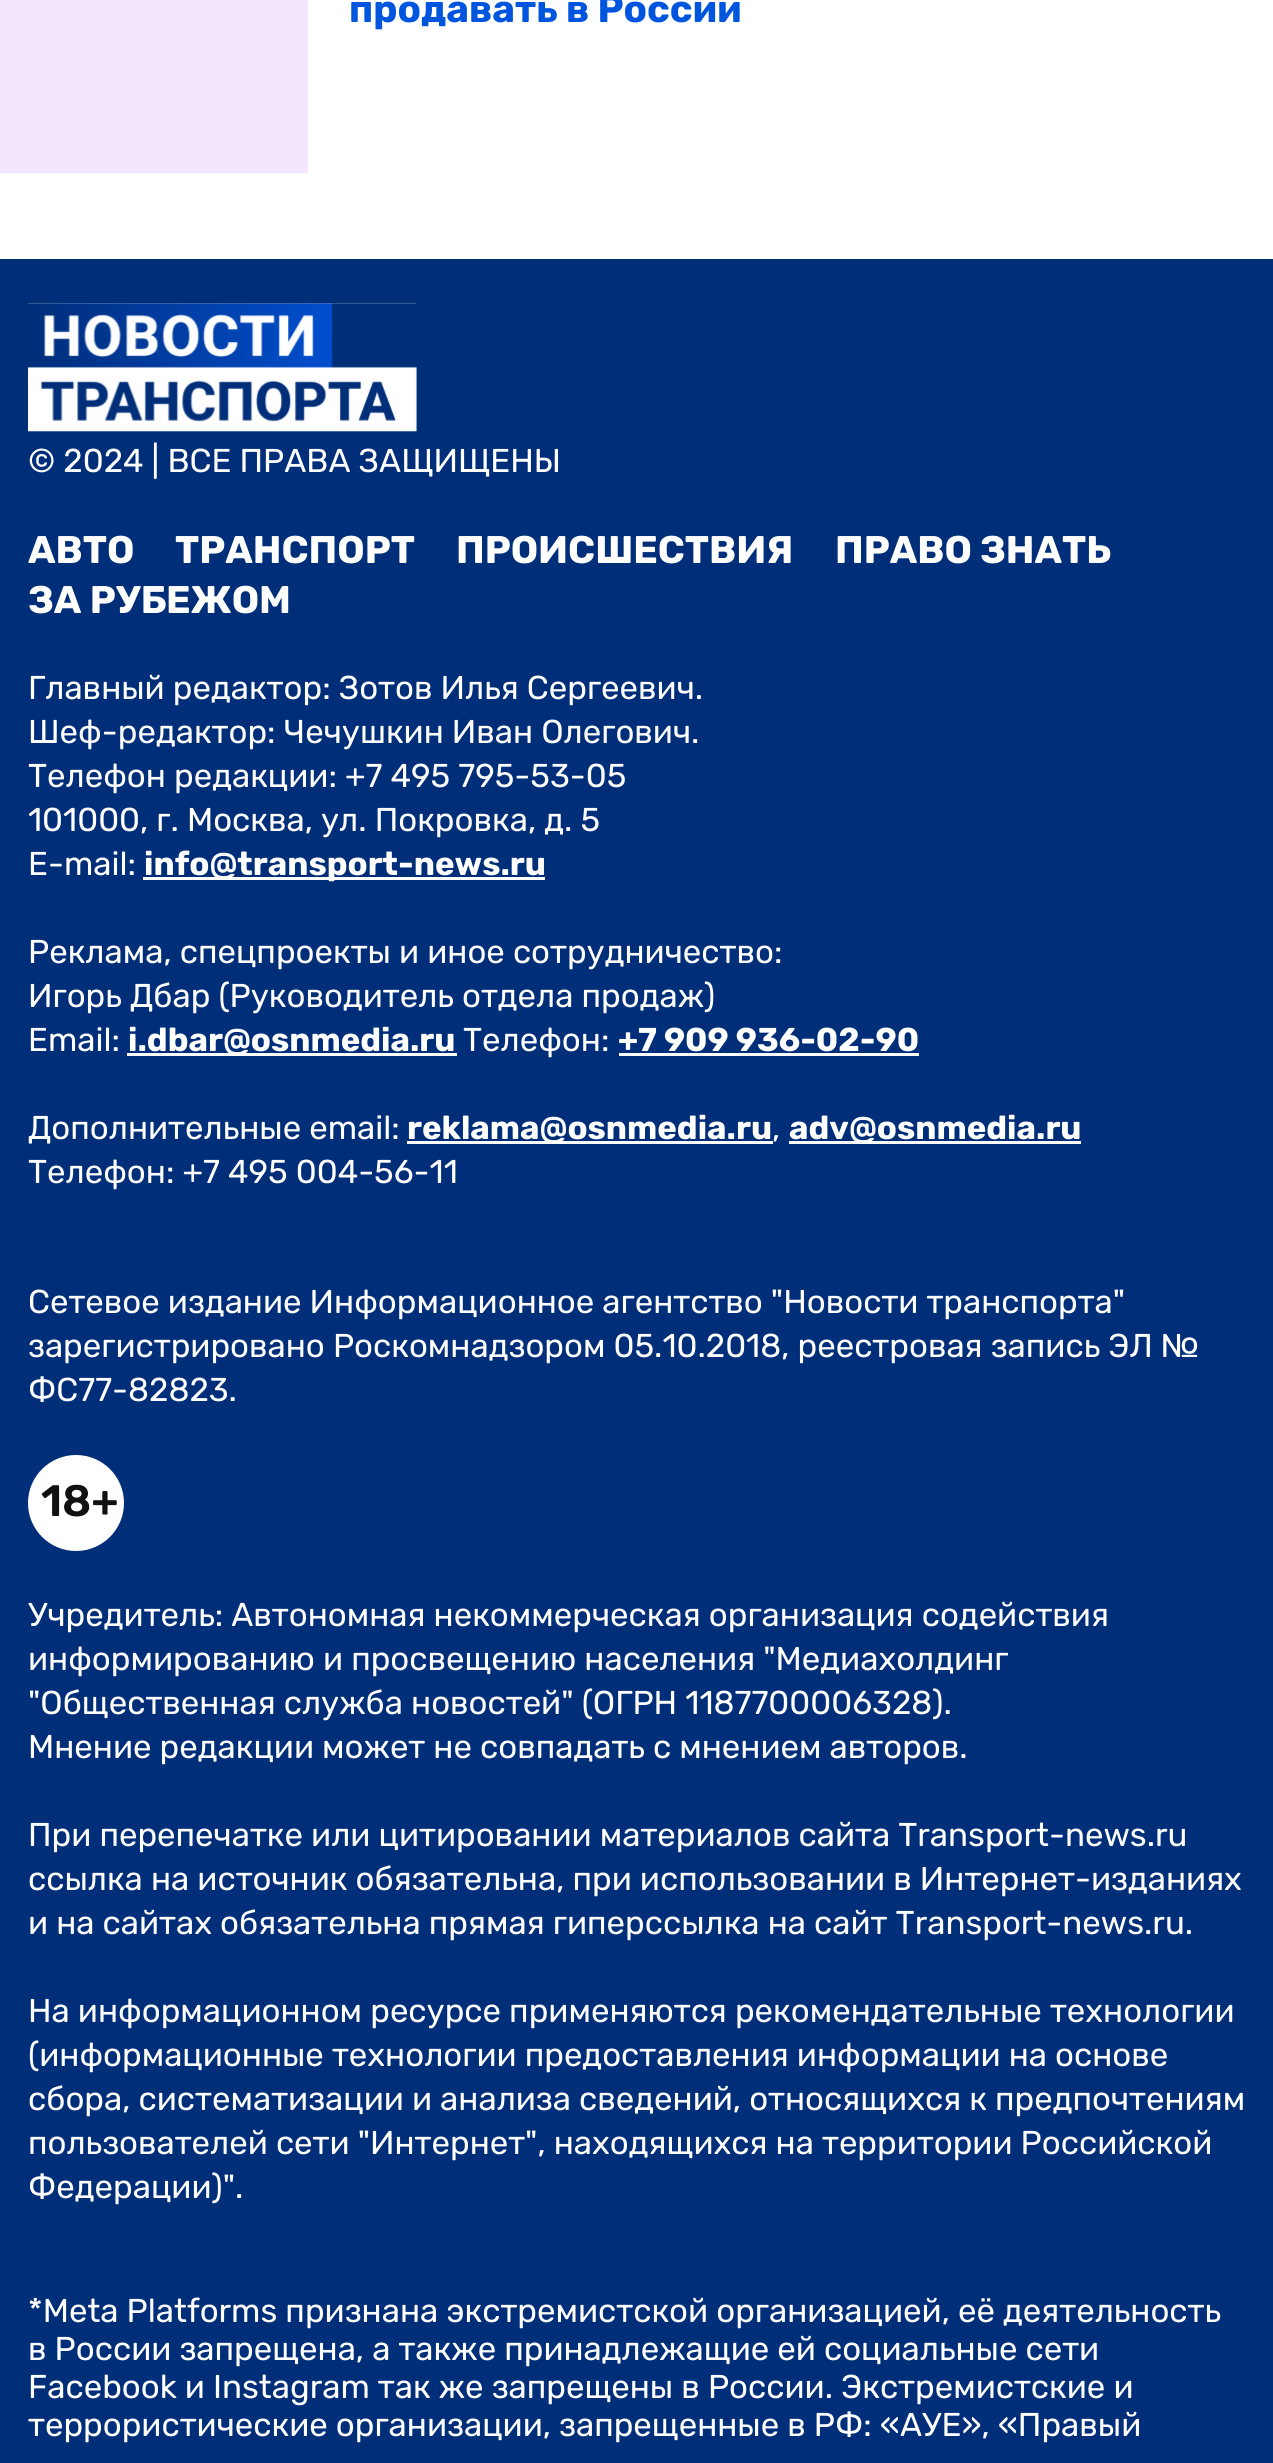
#include <cairo.h>
#include <math.h>
#include <stddef.h>


static void set_color(cairo_t *cr, unsigned color) {
    cairo_set_source_rgb(cr, (color >> 16) / 255.0, (color >> 8 & 255) / 255.0, (color & 255) / 255.0);
}

static void draw_text(cairo_t *cr, double x, double y, const char *s, const char *family, double size, int italic, int bold, unsigned color) {
    cairo_select_font_face(cr, family, italic ? CAIRO_FONT_SLANT_ITALIC : CAIRO_FONT_SLANT_NORMAL,
        bold ? CAIRO_FONT_WEIGHT_BOLD : CAIRO_FONT_WEIGHT_NORMAL);
    cairo_set_font_size(cr, size);
    set_color(cr, color);
    cairo_move_to(cr, x, y);
    cairo_show_text(cr, s);
}

static void fill_rect(cairo_t *cr, double x, double y, double w, double h, unsigned color) {
    set_color(cr, color);
    cairo_rectangle(cr, x, y, w, h);
    cairo_fill(cr);
}

static void draw_image(cairo_t *cr, const char *path, double x, double y, double w, double h) {
    cairo_surface_t *image = cairo_image_surface_create_from_png(path);
    cairo_save(cr);
    cairo_set_source_surface(cr, image, x, y);
    cairo_rectangle(cr, x, y, w, h);
    cairo_fill(cr);
    cairo_restore(cr);
    cairo_surface_destroy(image);
}

int main(void) {
    cairo_surface_t *surface = cairo_image_surface_create(CAIRO_FORMAT_RGB24, 1273, 2463);
    cairo_t *cr = cairo_create(surface);
    cairo_font_options_t *options = cairo_font_options_create();
    cairo_font_options_set_hint_metrics(options, CAIRO_HINT_METRICS_OFF);
    cairo_font_options_set_hint_style(options, CAIRO_HINT_STYLE_NONE);
    cairo_set_font_options(cr, options);
    cairo_set_miter_limit(cr, 4);
    set_color(cr, 0xFFFFFF);
    cairo_paint(cr);
    fill_rect(cr, 0, 0, 308, 173, 0xF3E7FF);
    draw_text(cr, 349, 22, "продавать в России", "Rubik", 38.5, 0, 1, 0x0055DF);
    fill_rect(cr, 0, 259, 1273, 2204, 0x002E79);
    draw_image(cr, "assets/img1.png", 28, 303, 389, 129);
    draw_text(cr, 28, 472, "© 2024 | ВСЕ ПРАВА ЗАЩИЩЕНЫ", "Rubik", 33, 0, 0, 0xFFFFFF);
    draw_text(cr, 28, 563, "АВТО", "Rubik", 38.5, 0, 1, 0xFFFFFF);
    draw_text(cr, 175, 563, "ТРАНСПОРТ", "Rubik", 38.5, 0, 1, 0xFFFFFF);
    draw_text(cr, 456, 563, "ПРОИСШЕСТВИЯ", "Rubik", 38.5, 0, 1, 0xFFFFFF);
    draw_text(cr, 835, 563, "ПРАВО ЗНАТЬ", "Rubik", 38.5, 0, 1, 0xFFFFFF);
    draw_text(cr, 28, 613, "ЗА РУБЕЖОМ", "Rubik", 38.5, 0, 1, 0xFFFFFF);
    draw_text(cr, 28, 699, "Главный редактор: Зотов Илья Сергеевич.", "Rubik", 33, 0, 0, 0xFFFFFF);
    draw_text(cr, 28, 743, "Шеф-редактор: Чечушкин Иван Олегович.", "Rubik", 33, 0, 0, 0xFFFFFF);
    draw_text(cr, 28, 787, "Телефон редакции: +7 495 795-53-05", "Rubik", 33, 0, 0, 0xFFFFFF);
    draw_text(cr, 28, 831, "101000, г. Москва, ул. Покровка, д. 5", "Rubik", 33, 0, 0, 0xFFFFFF);
    draw_text(cr, 28, 875, "E-mail:", "Rubik", 33, 0, 0, 0xFFFFFF);
    fill_rect(cr, 143, 877, 402, 3, 0xFFFFFF);
    draw_text(cr, 144, 875, "info@transport-news.ru", "Rubik", 33, 0, 1, 0xFFFFFF);
    draw_text(cr, 28, 963, "Реклама, спецпроекты и иное сотрудничество:", "Rubik", 33, 0, 0, 0xFFFFFF);
    draw_text(cr, 28, 1007, "Игорь Дбар (Руководитель отдела продаж)", "Rubik", 33, 0, 0, 0xFFFFFF);
    draw_text(cr, 28, 1051, "Email:", "Rubik", 33, 0, 0, 0xFFFFFF);
    fill_rect(cr, 127, 1053, 330, 3, 0xFFFFFF);
    draw_text(cr, 128, 1051, "i.dbar@osnmedia.ru", "Rubik", 33, 0, 1, 0xFFFFFF);
    draw_text(cr, 463, 1051, "Телефон:", "Rubik", 33, 0, 0, 0xFFFFFF);
    draw_text(cr, 618, 1051, "+7 909 936-02-90", "Rubik", 33, 0, 1, 0xFFFFFF);
    fill_rect(cr, 619, 1053, 300, 3, 0xFFFFFF);
    draw_text(cr, 28, 1139, "Дополнительные email:", "Rubik", 33, 0, 0, 0xFFFFFF);
    fill_rect(cr, 407, 1141, 366, 3, 0xFFFFFF);
    draw_text(cr, 407, 1139, "reklama@osnmedia.ru", "Rubik", 33, 0, 1, 0xFFFFFF);
    draw_text(cr, 772, 1139, ",", "Rubik", 33, 0, 0, 0xFFFFFF);
    fill_rect(cr, 789, 1141, 292, 3, 0xFFFFFF);
    draw_text(cr, 789, 1139, "adv@osnmedia.ru", "Rubik", 33, 0, 1, 0xFFFFFF);
    draw_text(cr, 28, 1183, "Телефон: +7 495 004-56-11", "Rubik", 33, 0, 0, 0xFFFFFF);
    draw_text(cr, 28, 1313, "Сетевое издание Информационное агентство \"Новости транспорта\"", "Rubik", 33, 0, 0, 0xFFFFFF);
    draw_text(cr, 28, 1357, "зарегистрировано Роскомнадзором 05.10.2018, реестровая запись ЭЛ №", "Rubik", 33, 0, 0, 0xFFFFFF);
    draw_text(cr, 28, 1401, "ФС77-82823.", "Rubik", 33, 0, 0, 0xFFFFFF);
    cairo_new_path(cr);
    cairo_arc(cr, 76, 1503, 48, 0, 2 * M_PI);
    cairo_fill(cr);
    draw_text(cr, 41, 1516, "18+", "Rubik SemiBold", 44, 0, 0, 0x111111);
    draw_text(cr, 28, 1626, "Учредитель: Автономная некоммерческая организация содействия", "Rubik", 33, 0, 0, 0xFFFFFF);
    draw_text(cr, 28, 1670, "информированию и просвещению населения \"Медиахолдинг", "Rubik", 33, 0, 0, 0xFFFFFF);
    draw_text(cr, 28, 1714, "\"Общественная служба новостей\" (ОГРН 1187700006328).", "Rubik", 33, 0, 0, 0xFFFFFF);
    draw_text(cr, 28, 1758, "Мнение редакции может не совпадать с мнением авторов.", "Rubik", 33, 0, 0, 0xFFFFFF);
    draw_text(cr, 28, 1846, "При перепечатке или цитировании материалов сайта Transport-news.ru", "Rubik", 33, 0, 0, 0xFFFFFF);
    draw_text(cr, 28, 1890, "ссылка на источник обязательна, при использовании в Интернет-изданиях", "Rubik", 33, 0, 0, 0xFFFFFF);
    draw_text(cr, 28, 1934, "и на сайтах обязательна прямая гиперссылка на сайт Transport-news.ru.", "Rubik", 33, 0, 0, 0xFFFFFF);
    draw_text(cr, 28, 2022, "На информационном ресурсе применяются рекомендательные технологии", "Rubik", 33, 0, 0, 0xFFFFFF);
    draw_text(cr, 28, 2066, "(информационные технологии предоставления информации на основе", "Rubik", 33, 0, 0, 0xFFFFFF);
    draw_text(cr, 28, 2110, "сбора, систематизации и анализа сведений, относящихся к предпочтениям", "Rubik", 33, 0, 0, 0xFFFFFF);
    draw_text(cr, 28, 2154, "пользователей сети \"Интернет\", находящихся на территории Российской", "Rubik", 33, 0, 0, 0xFFFFFF);
    draw_text(cr, 28, 2198, "Федерации)\".", "Rubik", 33, 0, 0, 0xFFFFFF);
    draw_text(cr, 28, 2322, "*Meta Platforms признана экстремистской организацией, её деятельность", "Rubik", 33, 0, 0, 0xFFFFFF);
    draw_text(cr, 28, 2360, "в России запрещена, а также принадлежащие ей социальные сети", "Rubik", 33, 0, 0, 0xFFFFFF);
    draw_text(cr, 28, 2398, "Facebook и Instagram так же запрещены в России. Экстремистские и", "Rubik", 33, 0, 0, 0xFFFFFF);
    draw_text(cr, 28, 2436, "террористические организации, запрещенные в РФ: «АУЕ», «Правый", "Rubik", 33, 0, 0, 0xFFFFFF);
    cairo_surface_write_to_png(surface, "output.png");
    cairo_font_options_destroy(options);
    cairo_destroy(cr);
    cairo_surface_destroy(surface);
    return 0;
}
